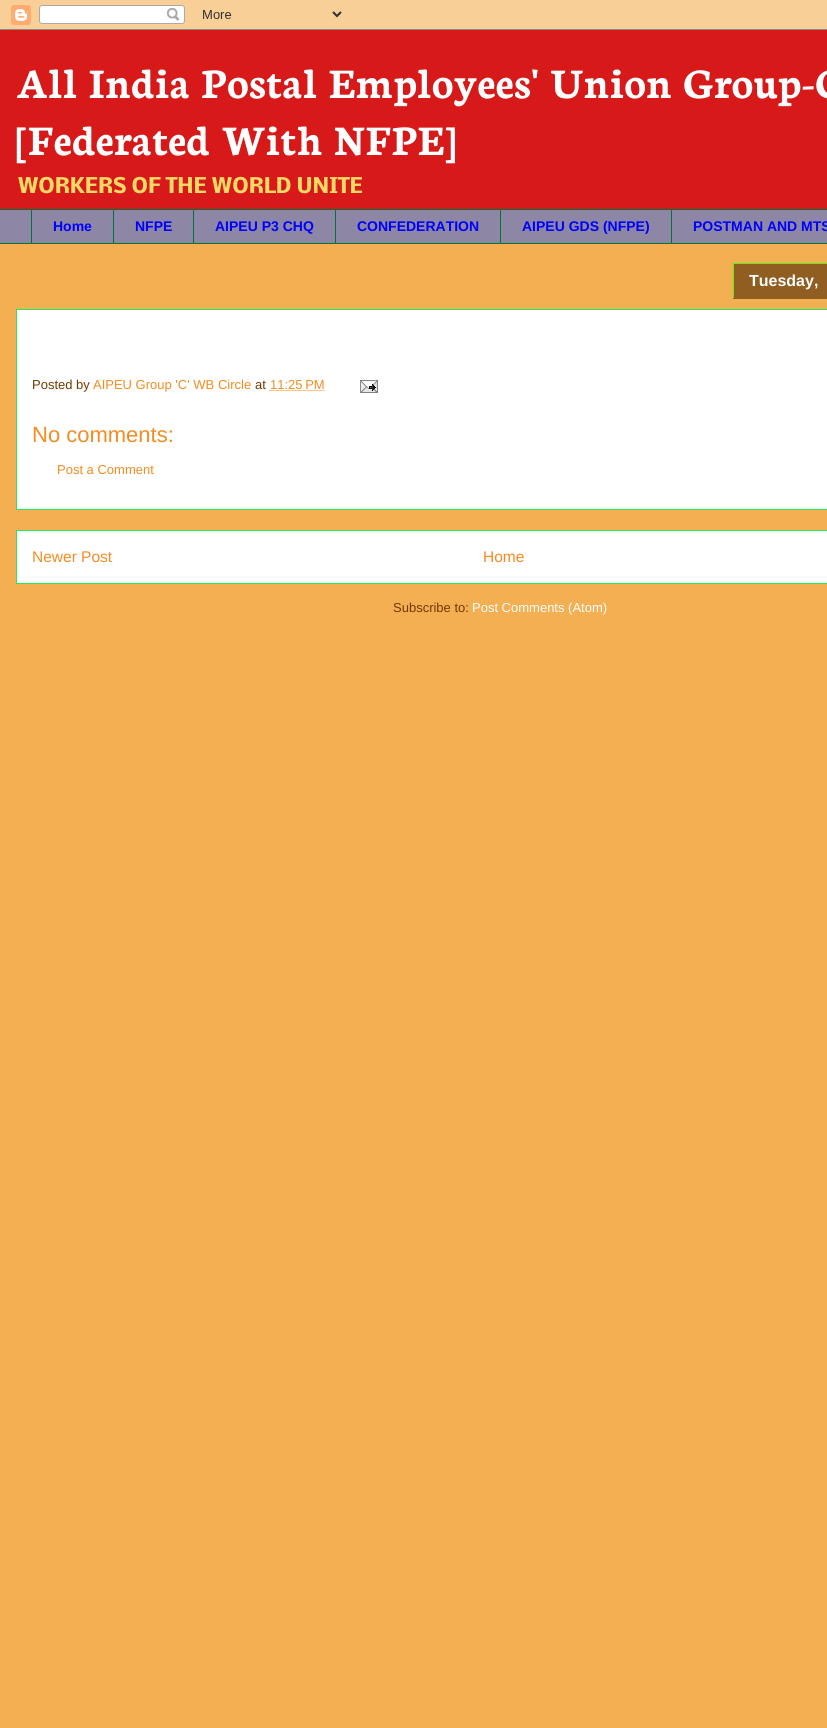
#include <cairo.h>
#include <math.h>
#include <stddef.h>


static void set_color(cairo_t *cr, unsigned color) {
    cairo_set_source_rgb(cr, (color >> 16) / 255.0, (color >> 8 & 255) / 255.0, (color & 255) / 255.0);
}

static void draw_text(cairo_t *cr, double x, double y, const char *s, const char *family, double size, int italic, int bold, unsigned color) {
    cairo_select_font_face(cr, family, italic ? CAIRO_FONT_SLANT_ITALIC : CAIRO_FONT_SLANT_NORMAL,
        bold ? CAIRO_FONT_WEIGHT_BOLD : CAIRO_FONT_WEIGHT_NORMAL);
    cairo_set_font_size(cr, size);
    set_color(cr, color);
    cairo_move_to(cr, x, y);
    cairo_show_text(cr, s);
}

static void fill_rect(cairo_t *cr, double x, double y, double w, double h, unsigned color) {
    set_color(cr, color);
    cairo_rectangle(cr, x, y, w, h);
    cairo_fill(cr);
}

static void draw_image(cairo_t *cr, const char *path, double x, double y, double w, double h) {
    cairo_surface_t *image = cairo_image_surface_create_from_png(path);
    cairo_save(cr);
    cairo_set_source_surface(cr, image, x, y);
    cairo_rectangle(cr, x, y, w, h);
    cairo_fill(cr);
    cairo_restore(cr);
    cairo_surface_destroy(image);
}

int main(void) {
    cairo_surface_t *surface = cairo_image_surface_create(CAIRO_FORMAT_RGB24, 827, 1728);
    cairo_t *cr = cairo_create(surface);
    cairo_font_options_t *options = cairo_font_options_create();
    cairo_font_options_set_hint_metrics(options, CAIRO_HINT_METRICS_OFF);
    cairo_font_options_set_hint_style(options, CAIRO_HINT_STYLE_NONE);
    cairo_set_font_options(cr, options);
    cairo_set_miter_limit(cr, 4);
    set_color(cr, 0xF4AF52);
    cairo_paint(cr);
    draw_image(cr, "assets/img1.png", 0, 0, 827, 30);
    fill_rect(cr, 0, 30, 827, 179, 0xD81919);
    draw_text(cr, 16, 98, "All India Postal Employees' Union Group-C", "Neuton", 45, 0, 1, 0xFFFFFF);
    draw_text(cr, 16, 155, "[Federated With NFPE]", "Neuton", 45, 0, 1, 0xFFFFFF);
    draw_text(cr, 18, 193, "WORKERS OF THE WORLD UNITE", "Nobile", 20, 0, 1, 0xFFD966);
    fill_rect(cr, 0, 210, 827, 33, 0x8D86A4);
    fill_rect(cr, 0, 209, 671, 1, 0x007339);
    fill_rect(cr, 31, 209, 1, 35, 0x007339);
    draw_text(cr, 53, 231, "Home", "Liberation Sans", 14, 0, 1, 0x0000FF);
    fill_rect(cr, 113, 209, 1, 35, 0x007339);
    draw_text(cr, 135, 231, "NFPE", "Liberation Sans", 14, 0, 1, 0x0000FF);
    fill_rect(cr, 193, 209, 1, 35, 0x007339);
    draw_text(cr, 215, 231, "AIPEU P3 CHQ", "Liberation Sans", 14, 0, 1, 0x0000FF);
    fill_rect(cr, 335, 209, 1, 35, 0x007339);
    draw_text(cr, 357, 231, "CONFEDERATION", "Liberation Sans", 14, 0, 1, 0x0000FF);
    fill_rect(cr, 500, 209, 1, 35, 0x007339);
    draw_text(cr, 522, 231, "AIPEU GDS (NFPE)", "Liberation Sans", 14, 0, 1, 0x0000FF);
    cairo_rectangle(cr, 671.5, 209.5, 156, 34);
    set_color(cr, 0x007339);
    cairo_set_line_width(cr, 1);
    cairo_stroke(cr);
    draw_text(cr, 693, 231, "POSTMAN AND MTS", "Liberation Sans", 14, 0, 1, 0x0000FF);
    fill_rect(cr, 0, 243, 671, 1, 0x007339);
    set_color(cr, 0xFFFFFF);
    cairo_rectangle(cr, 16.5, 309.5, 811, 200);
    cairo_fill_preserve(cr);
    set_color(cr, 0x21EB5E);
    cairo_stroke(cr);
    fill_rect(cr, 733, 264, 94, 35, 0x905E21);
    fill_rect(cr, 733, 263, 94, 1, 0x59F018);
    fill_rect(cr, 733, 264, 1, 34, 0x59F018);
    draw_text(cr, 749, 286, "Tuesday,", "Liberation Sans", 16, 0, 1, 0xFFFFFF);
    draw_text(cr, 32, 389, "Posted by", "Liberation Sans", 13, 0, 0, 0x733900);
    draw_text(cr, 93, 389, "AIPEU Group 'C' WB Circle", "Liberation Sans", 13, 0, 0, 0xF48C21);
    draw_text(cr, 255, 389, "at", "Liberation Sans", 13, 0, 0, 0x733900);
    draw_text(cr, 270, 389, "11:25 PM", "Liberation Sans", 13, 0, 0, 0xF48C21);
    cairo_new_path(cr);
    cairo_move_to(cr, 269.5, 390.5);
    cairo_line_to(cr, 324.5, 390.5);
    cairo_set_dash(cr, (double[]){1, 1}, 2, 0);
    cairo_stroke(cr);
    draw_image(cr, "assets/img2.png", 360, 380, 18, 13);
    draw_text(cr, 32, 442, "No comments:", "Liberation Sans", 22, 0, 0, 0xF48C21);
    draw_text(cr, 57, 474, "Post a Comment", "Liberation Sans", 13, 0, 0, 0xF48C21);
    set_color(cr, 0xFFFFFF);
    cairo_rectangle(cr, 16.5, 530.5, 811, 53);
    cairo_fill_preserve(cr);
    set_color(cr, 0x21EB5E);
    cairo_set_dash(cr, NULL, 0, 0);
    cairo_stroke(cr);
    draw_text(cr, 32, 562, "Newer Post", "Liberation Sans", 15.5, 0, 0, 0xF48C21);
    draw_text(cr, 483, 562, "Home", "Liberation Sans", 15.5, 0, 0, 0xF48C21);
    draw_text(cr, 393, 612, "Subscribe to:", "Liberation Sans", 13, 0, 0, 0x733900);
    draw_text(cr, 472, 612, "Post Comments (Atom)", "Liberation Sans", 13, 0, 0, 0xFFFFFF);
    cairo_surface_write_to_png(surface, "output.png");
    cairo_font_options_destroy(options);
    cairo_destroy(cr);
    cairo_surface_destroy(surface);
    return 0;
}
